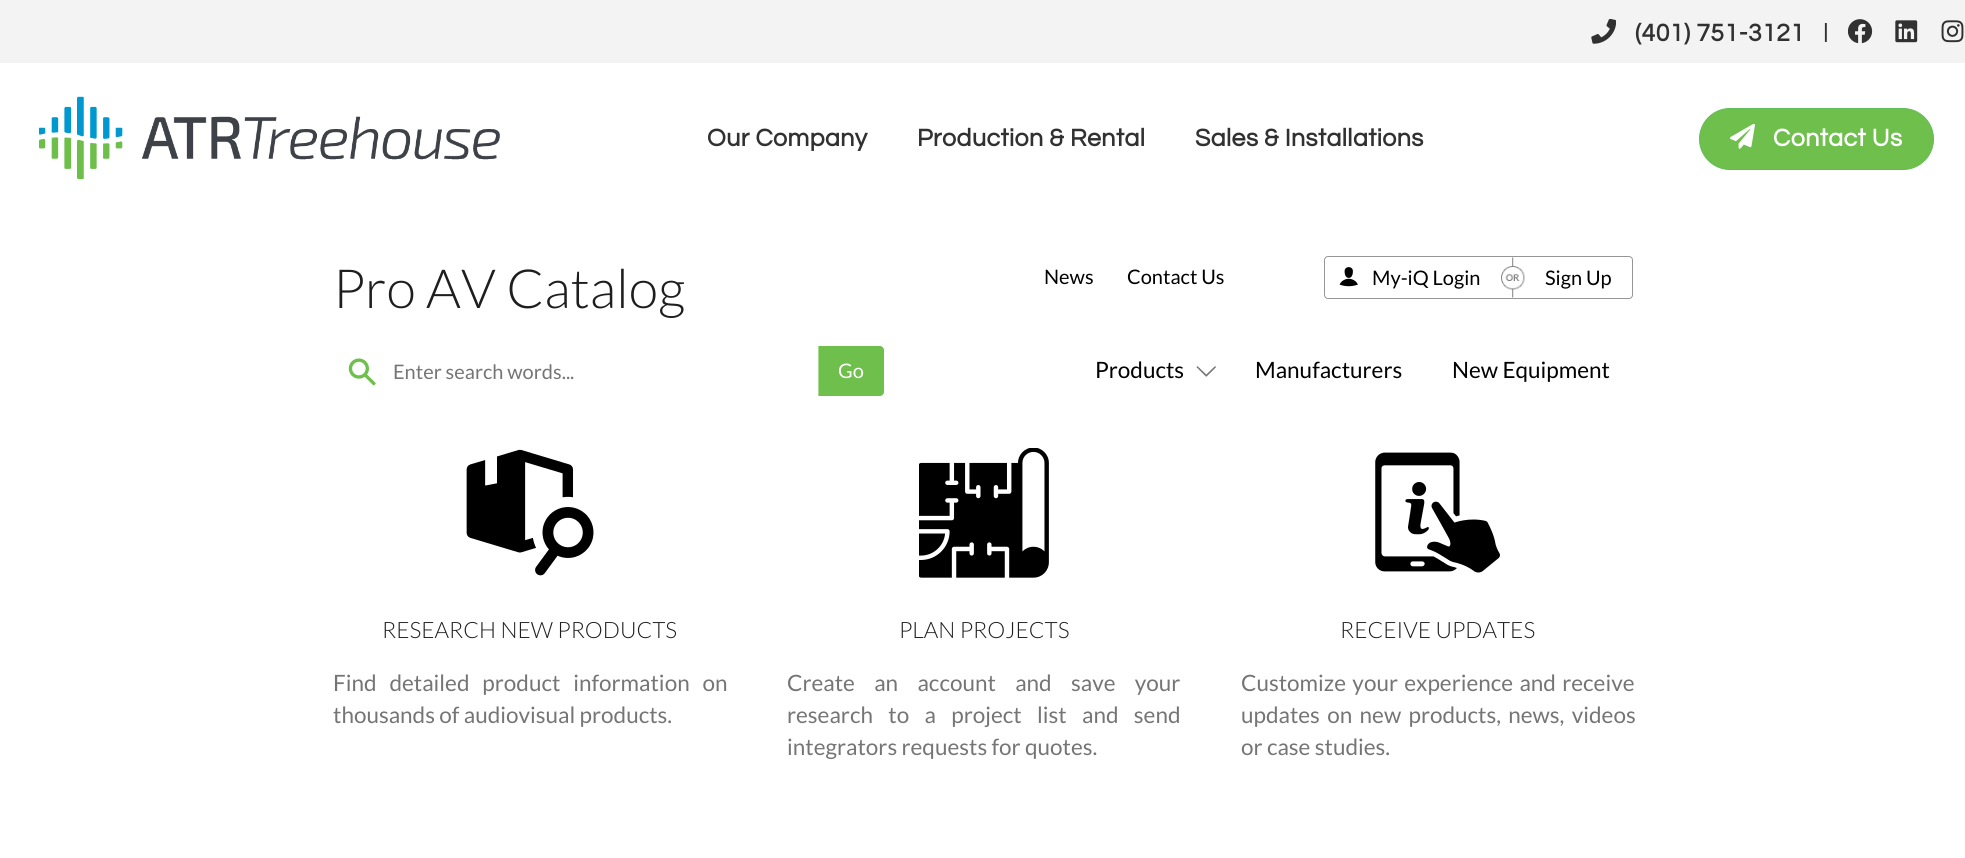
#include <cairo.h>
#include <math.h>
#include <stddef.h>


static void set_color(cairo_t *cr, unsigned color) {
    cairo_set_source_rgb(cr, (color >> 16) / 255.0, (color >> 8 & 255) / 255.0, (color & 255) / 255.0);
}

static void draw_text(cairo_t *cr, double x, double y, const char *s, const char *family, double size, int italic, int bold, unsigned color) {
    cairo_select_font_face(cr, family, italic ? CAIRO_FONT_SLANT_ITALIC : CAIRO_FONT_SLANT_NORMAL,
        bold ? CAIRO_FONT_WEIGHT_BOLD : CAIRO_FONT_WEIGHT_NORMAL);
    cairo_set_font_size(cr, size);
    set_color(cr, color);
    cairo_move_to(cr, x, y);
    cairo_show_text(cr, s);
}

static void draw_spaced(cairo_t *cr, double x, double y, const char *s, double letter, double word) {
    cairo_move_to(cr, x, y);
    while (*s) {
        char ch[5] = {0};
        int n = 0;
        do ch[n++] = *s++; while ((*s & 0xC0) == 0x80);
        cairo_show_text(cr, ch);
        cairo_rel_move_to(cr, letter + word * (*ch == ' '), 0);
    }
}

static void fill_rect(cairo_t *cr, double x, double y, double w, double h, unsigned color) {
    set_color(cr, color);
    cairo_rectangle(cr, x, y, w, h);
    cairo_fill(cr);
}

static void rounded_rect(cairo_t *cr, double x, double y, double w, double h, double r) {
    cairo_new_sub_path(cr);
    cairo_arc(cr, x + w - r, y + h - r, r, 0, M_PI / 2);
    cairo_arc(cr, x + r, y + h - r, r, M_PI / 2, M_PI);
    cairo_arc(cr, x + r, y + r, r, M_PI, 1.5 * M_PI);
    cairo_arc(cr, x + w - r, y + r, r, 1.5 * M_PI, 2 * M_PI);
    cairo_close_path(cr);
}

static void draw_image(cairo_t *cr, const char *path, double x, double y, double w, double h) {
    cairo_surface_t *image = cairo_image_surface_create_from_png(path);
    cairo_save(cr);
    cairo_set_source_surface(cr, image, x, y);
    cairo_rectangle(cr, x, y, w, h);
    cairo_fill(cr);
    cairo_restore(cr);
    cairo_surface_destroy(image);
}

int main(void) {
    cairo_surface_t *surface = cairo_image_surface_create(CAIRO_FORMAT_RGB24, 1965, 858);
    cairo_t *cr = cairo_create(surface);
    cairo_font_options_t *options = cairo_font_options_create();
    cairo_font_options_set_hint_metrics(options, CAIRO_HINT_METRICS_OFF);
    cairo_font_options_set_hint_style(options, CAIRO_HINT_STYLE_NONE);
    cairo_set_font_options(cr, options);
    cairo_set_miter_limit(cr, 4);
    set_color(cr, 0xFFFFFF);
    cairo_paint(cr);
    fill_rect(cr, 0, 0, 1965, 63, 0xF3F3F3);
    draw_image(cr, "assets/img1.png", 1591, 19, 25, 25);
    cairo_select_font_face(cr, "Questrial", CAIRO_FONT_SLANT_NORMAL, CAIRO_FONT_WEIGHT_BOLD);
    cairo_set_font_size(cr, 25);
    set_color(cr, 0x313131);
    draw_spaced(cr, 1635, 41, "(401) 751-3121", 0.4, 0);
    draw_text(cr, 1823, 39, "|", "Roboto", 22.5, 0, 1, 0x313131);
    draw_image(cr, "assets/img2.png", 1848, 19, 25, 25);
    draw_image(cr, "assets/img3.png", 1895, 20, 23, 23);
    draw_image(cr, "assets/img4.png", 1941, 20, 23, 23);
    draw_image(cr, "assets/img5.png", 39, 96, 461, 84);
    cairo_select_font_face(cr, "Questrial", CAIRO_FONT_SLANT_NORMAL, CAIRO_FONT_WEIGHT_BOLD);
    cairo_set_font_size(cr, 25);
    draw_spaced(cr, 707, 146, "Our Company", 0.4, 0);
    draw_spaced(cr, 917, 146, "Production & Rental", 0.4, 0);
    draw_spaced(cr, 1195, 146, "Sales & Installations", 0.4, 0);
    set_color(cr, 0x6EBF4B);
    rounded_rect(cr, 1699.5, 108.5, 234, 61, 30.5);
    cairo_fill_preserve(cr);
    set_color(cr, 0x61BD55);
    cairo_set_line_width(cr, 1);
    cairo_stroke(cr);
    draw_image(cr, "assets/img6.png", 1730, 124, 25, 25);
    set_color(cr, 0xFFFFFF);
    draw_spaced(cr, 1773, 146, "Contact Us", 0.4, 0);
    draw_text(cr, 333, 308, "Pro AV Catalog", "Lato Light", 54, 0, 0, 0x1E1E1E);
    draw_text(cr, 1044, 284, "News", "Lato", 20, 0, 0, 0x000000);
    draw_text(cr, 1127, 284, "Contact Us", "Lato", 20, 0, 0, 0x000000);
    rounded_rect(cr, 1324.5, 256.5, 308, 42, 3.5);
    set_color(cr, 0x969696);
    cairo_stroke(cr);
    draw_image(cr, "assets/img7.png", 1339, 267, 19, 20);
    draw_text(cr, 1372, 285, "My-iQ Login", "Lato", 20, 0, 0, 0x000000);
    draw_image(cr, "assets/img8.png", 1501, 257, 24, 41);
    draw_text(cr, 1545, 285, "Sign Up", "Lato", 20, 0, 0, 0x000000);
    draw_image(cr, "assets/img9.png", 348, 358, 28, 28);
    draw_text(cr, 393, 379, "Enter search words...", "Lato", 20, 0, 0, 0x757575);
    set_color(cr, 0x6EBF4B);
    cairo_new_path(cr);
    cairo_move_to(cr, 818, 346);
    cairo_line_to(cr, 880, 346);
    cairo_curve_to(cr, 882, 346, 884, 348, 884, 350);
    cairo_line_to(cr, 884, 392);
    cairo_curve_to(cr, 884, 394, 882, 396, 880, 396);
    cairo_line_to(cr, 818, 396);
    cairo_close_path(cr);
    cairo_fill(cr);
    fill_rect(cr, 818, 346, 1, 50, 0xA8D993);
    draw_text(cr, 838, 378, "Go", "Lato", 20, 0, 0, 0xFFFFFF);
    draw_text(cr, 1095, 378, "Products", "Lato", 22.5, 0, 0, 0x000000);
    draw_image(cr, "assets/img10.png", 1196, 366, 20, 11);
    draw_text(cr, 1255, 378, "Manufacturers", "Lato", 22.5, 0, 0, 0x000000);
    draw_text(cr, 1452, 378, "New Equipment", "Lato", 22.5, 0, 0, 0x000000);
    draw_image(cr, "assets/img11.png", 466, 449, 128, 127);
    draw_text(cr, 382, 638, "RESEARCH NEW PRODUCTS", "Lato Light", 22.5, 0, 0, 0x1E1E1E);
    cairo_select_font_face(cr, "Lato", CAIRO_FONT_SLANT_NORMAL, CAIRO_FONT_WEIGHT_NORMAL);
    set_color(cr, 0x757575);
    draw_spaced(cr, 333, 691, "Find detailed product information on", 0, 8.5);
    draw_text(cr, 333, 723, "thousands of audiovisual products.", "Lato", 22.5, 0, 0, 0x757575);
    draw_image(cr, "assets/img12.png", 919, 448, 130, 130);
    draw_text(cr, 899, 638, "PLAN PROJECTS", "Lato Light", 22.5, 0, 0, 0x1E1E1E);
    cairo_select_font_face(cr, "Lato", CAIRO_FONT_SLANT_NORMAL, CAIRO_FONT_WEIGHT_NORMAL);
    set_color(cr, 0x757575);
    draw_spaced(cr, 787, 691, "Create an account and save your", 0, 15);
    draw_spaced(cr, 787, 723, "research to a project list and send", 0, 11);
    draw_text(cr, 787, 755, "integrators requests for quotes.", "Lato", 22.5, 0, 0, 0x757575);
    draw_image(cr, "assets/img13.png", 1375, 452, 125, 121);
    draw_text(cr, 1340, 638, "RECEIVE UPDATES", "Lato Light", 22.5, 0, 0, 0x1E1E1E);
    cairo_select_font_face(cr, "Lato", CAIRO_FONT_SLANT_NORMAL, CAIRO_FONT_WEIGHT_NORMAL);
    set_color(cr, 0x757575);
    draw_spaced(cr, 1241, 691, "Customize your experience and receive", 0, 2);
    draw_spaced(cr, 1241, 723, "updates on new products, news, videos", 0, 3);
    draw_text(cr, 1241, 755, "or case studies.", "Lato", 22.5, 0, 0, 0x757575);
    cairo_surface_write_to_png(surface, "output.png");
    cairo_font_options_destroy(options);
    cairo_destroy(cr);
    cairo_surface_destroy(surface);
    return 0;
}
